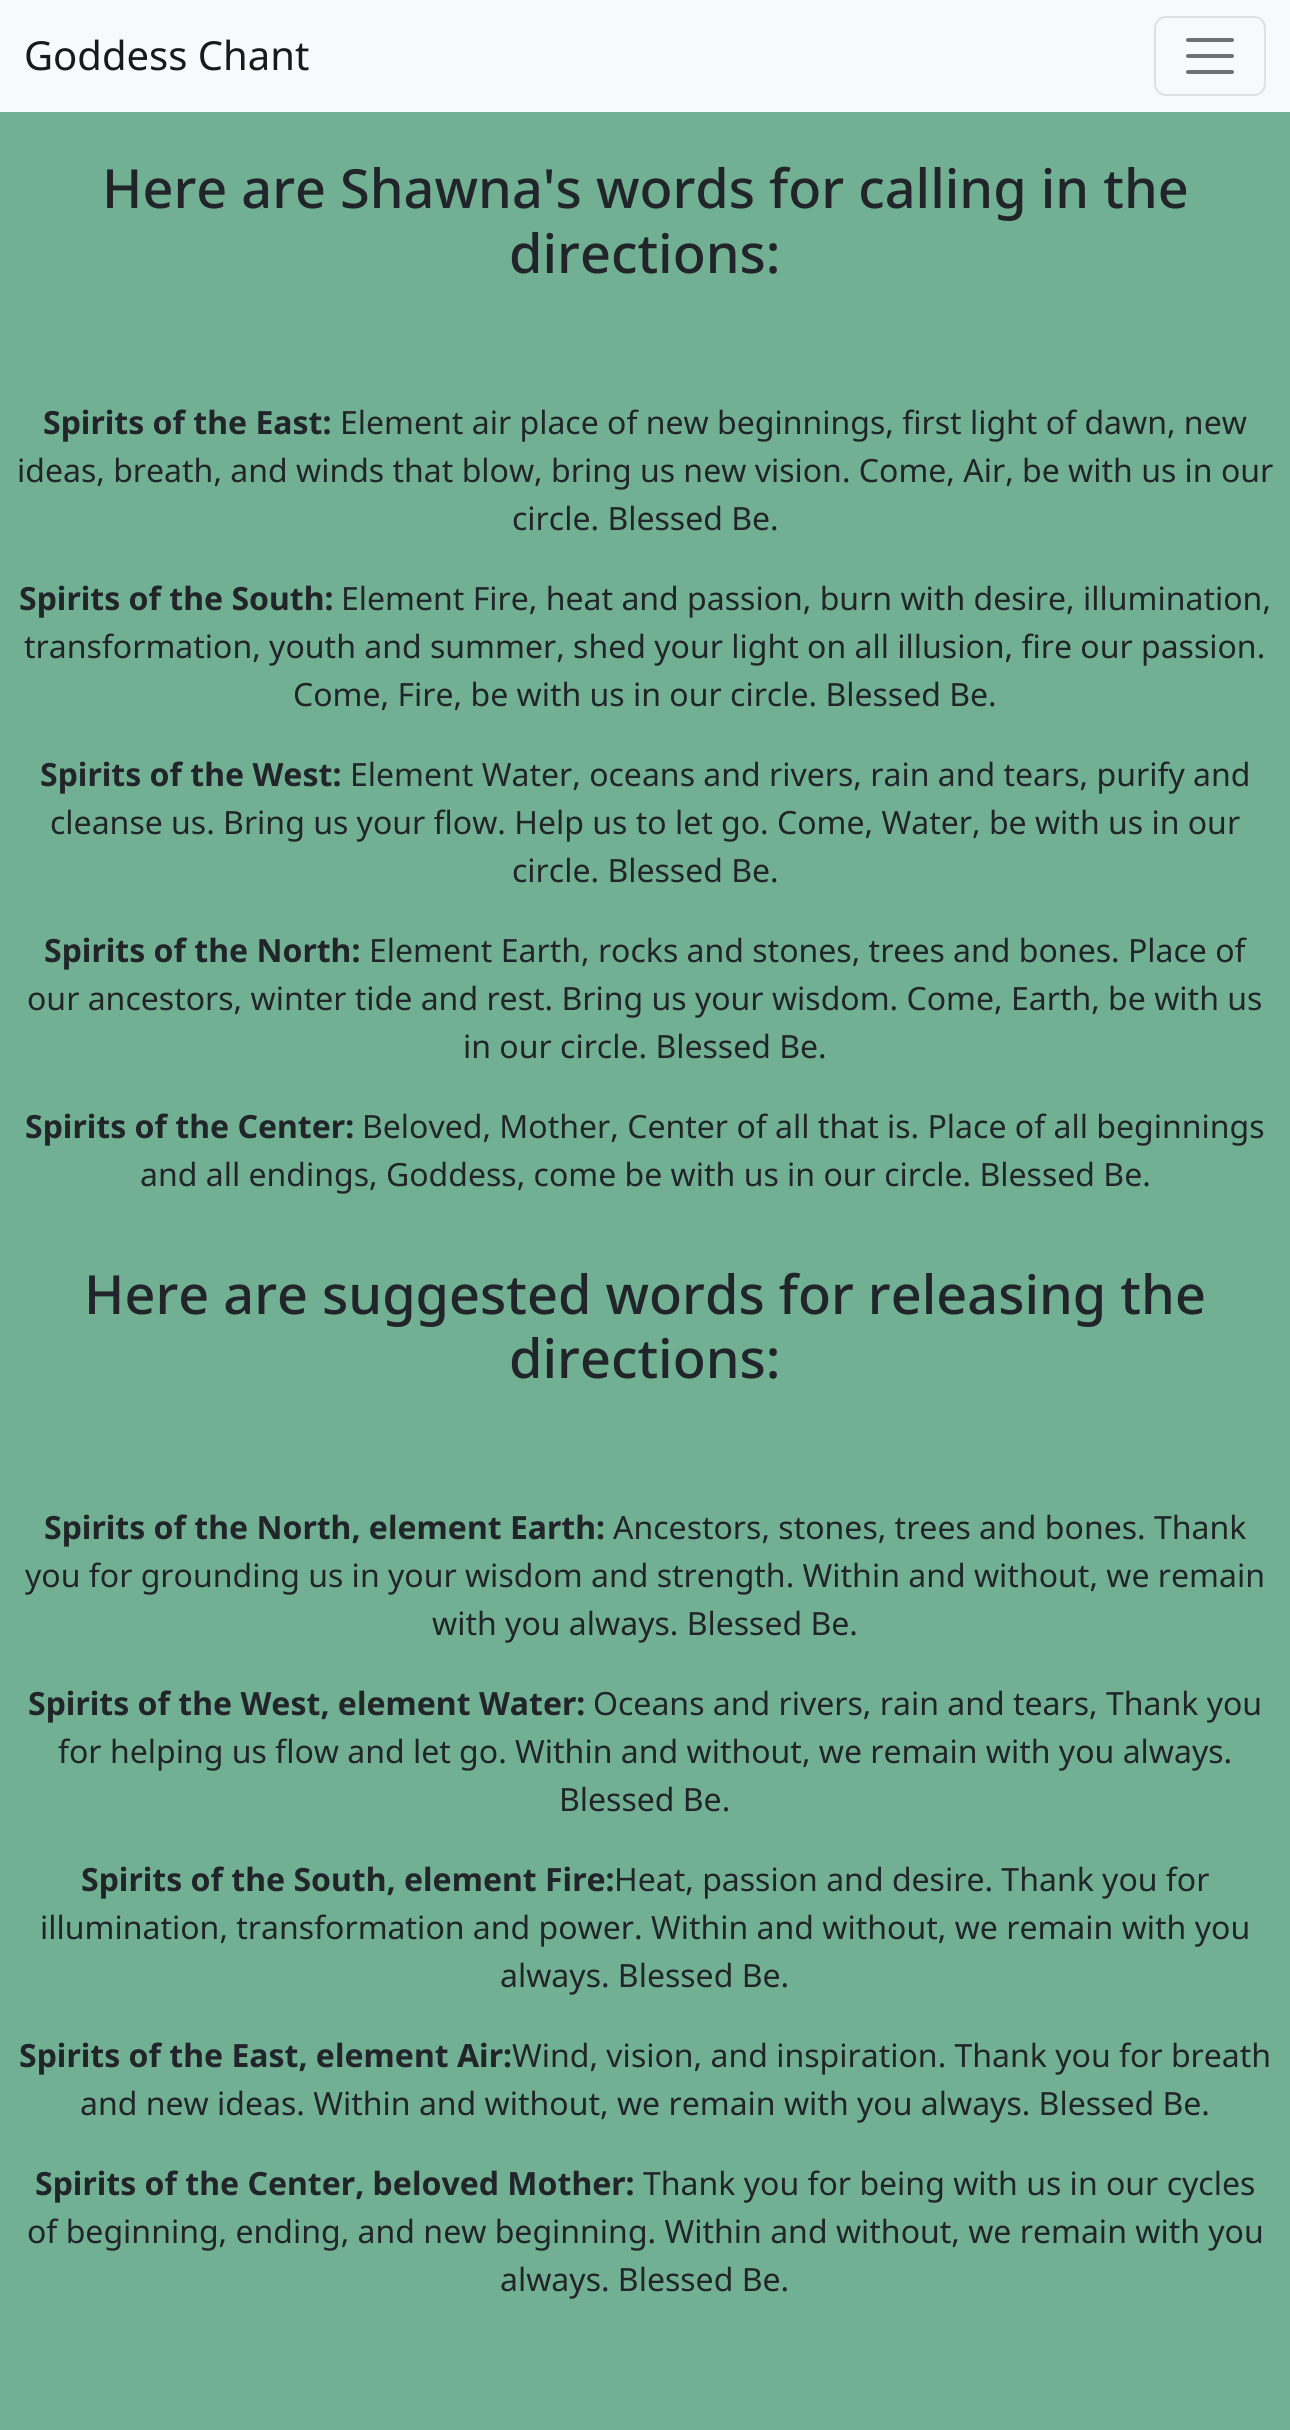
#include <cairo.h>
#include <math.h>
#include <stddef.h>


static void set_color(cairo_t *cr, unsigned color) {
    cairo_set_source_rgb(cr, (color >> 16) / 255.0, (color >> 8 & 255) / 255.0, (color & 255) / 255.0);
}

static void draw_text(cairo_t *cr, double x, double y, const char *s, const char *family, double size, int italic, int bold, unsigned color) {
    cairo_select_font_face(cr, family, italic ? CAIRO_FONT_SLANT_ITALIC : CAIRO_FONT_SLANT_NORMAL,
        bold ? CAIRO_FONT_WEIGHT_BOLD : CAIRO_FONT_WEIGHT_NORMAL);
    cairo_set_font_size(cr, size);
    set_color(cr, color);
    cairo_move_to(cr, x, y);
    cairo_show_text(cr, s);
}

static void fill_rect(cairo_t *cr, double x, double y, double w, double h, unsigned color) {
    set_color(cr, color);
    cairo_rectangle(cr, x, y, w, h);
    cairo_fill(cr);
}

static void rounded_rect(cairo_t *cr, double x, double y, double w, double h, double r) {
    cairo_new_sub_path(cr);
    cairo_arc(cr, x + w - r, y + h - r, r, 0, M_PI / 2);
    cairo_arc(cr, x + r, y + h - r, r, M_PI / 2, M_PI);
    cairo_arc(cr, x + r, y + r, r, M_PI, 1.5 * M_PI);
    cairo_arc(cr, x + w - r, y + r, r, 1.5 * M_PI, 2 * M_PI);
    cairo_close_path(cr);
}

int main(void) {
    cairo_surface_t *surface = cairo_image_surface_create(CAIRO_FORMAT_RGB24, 1290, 2430);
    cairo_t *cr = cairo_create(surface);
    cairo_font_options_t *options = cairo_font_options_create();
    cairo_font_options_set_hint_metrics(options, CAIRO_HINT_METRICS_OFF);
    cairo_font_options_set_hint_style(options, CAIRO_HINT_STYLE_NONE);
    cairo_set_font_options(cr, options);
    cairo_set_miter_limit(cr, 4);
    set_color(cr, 0x72B093);
    cairo_paint(cr);
    fill_rect(cr, 0, 0, 1290, 112, 0xF8F9FA);
    draw_text(cr, 24, 70, "Goddess Chant", "Noto Sans", 40, 0, 0, 0x191919);
    rounded_rect(cr, 1155, 17, 110, 78, 11);
    set_color(cr, 0xDFE0E1);
    cairo_stroke(cr);
    cairo_new_path(cr);
    cairo_move_to(cr, 1188, 40);
    cairo_line_to(cr, 1232, 40);
    cairo_move_to(cr, 1188, 56);
    cairo_line_to(cr, 1232, 56);
    cairo_move_to(cr, 1188, 72);
    cairo_line_to(cr, 1232, 72);
    set_color(cr, 0x707071);
    cairo_set_line_width(cr, 4);
    cairo_set_line_cap(cr, CAIRO_LINE_CAP_ROUND);
    cairo_stroke(cr);
    draw_text(cr, 102, 208, "Here are Shawna's words for calling in the", "Noto Sans Medium", 54, 0, 0, 0x212529);
    draw_text(cr, 509, 273, "directions:", "Noto Sans Medium", 54, 0, 0, 0x212529);
    draw_text(cr, 43, 434, "Spirits of the East:", "Noto Sans", 32, 0, 1, 0x212529);
    draw_text(cr, 340, 434, "Element air place of new beginnings, first light of dawn, new", "Noto Sans", 32, 0, 0, 0x212529);
    draw_text(cr, 17, 482, "ideas, breath, and winds that blow, bring us new vision. Come, Air, be with us in our", "Noto Sans", 32, 0, 0, 0x212529);
    draw_text(cr, 512, 530, "circle. Blessed Be.", "Noto Sans", 32, 0, 0, 0x212529);
    draw_text(cr, 19, 610, "Spirits of the South:", "Noto Sans", 32, 0, 1, 0x212529);
    draw_text(cr, 341, 610, "Element Fire, heat and passion, burn with desire, illumination,", "Noto Sans", 32, 0, 0, 0x212529);
    draw_text(cr, 24, 658, "transformation, youth and summer, shed your light on all illusion, fire our passion.", "Noto Sans", 32, 0, 0, 0x212529);
    draw_text(cr, 293, 706, "Come, Fire, be with us in our circle. Blessed Be.", "Noto Sans", 32, 0, 0, 0x212529);
    draw_text(cr, 40, 786, "Spirits of the West:", "Noto Sans", 32, 0, 1, 0x212529);
    draw_text(cr, 350, 786, "Element Water, oceans and rivers, rain and tears, purify and", "Noto Sans", 32, 0, 0, 0x212529);
    draw_text(cr, 50, 834, "cleanse us. Bring us your flow. Help us to let go. Come, Water, be with us in our", "Noto Sans", 32, 0, 0, 0x212529);
    draw_text(cr, 512, 882, "circle. Blessed Be.", "Noto Sans", 32, 0, 0, 0x212529);
    draw_text(cr, 44, 962, "Spirits of the North:", "Noto Sans", 32, 0, 1, 0x212529);
    draw_text(cr, 369, 962, "Element Earth, rocks and stones, trees and bones. Place of", "Noto Sans", 32, 0, 0, 0x212529);
    draw_text(cr, 27, 1010, "our ancestors, winter tide and rest. Bring us your wisdom. Come, Earth, be with us", "Noto Sans", 32, 0, 0, 0x212529);
    draw_text(cr, 463, 1058, "in our circle. Blessed Be.", "Noto Sans", 32, 0, 0, 0x212529);
    draw_text(cr, 25, 1138, "Spirits of the Center:", "Noto Sans", 32, 0, 1, 0x212529);
    draw_text(cr, 362, 1138, "Beloved, Mother, Center of all that is. Place of all beginnings", "Noto Sans", 32, 0, 0, 0x212529);
    draw_text(cr, 140, 1186, "and all endings, Goddess, come be with us in our circle. Blessed Be.", "Noto Sans", 32, 0, 0, 0x212529);
    draw_text(cr, 84, 1314, "Here are suggested words for releasing the", "Noto Sans Medium", 54, 0, 0, 0x212529);
    draw_text(cr, 509, 1378, "directions:", "Noto Sans Medium", 54, 0, 0, 0x212529);
    draw_text(cr, 44, 1539, "Spirits of the North, element Earth:", "Noto Sans", 32, 0, 1, 0x212529);
    draw_text(cr, 613, 1539, "Ancestors, stones, trees and bones. Thank", "Noto Sans", 32, 0, 0, 0x212529);
    draw_text(cr, 25, 1587, "you for grounding us in your wisdom and strength. Within and without, we remain", "Noto Sans", 32, 0, 0, 0x212529);
    draw_text(cr, 432, 1635, "with you always. Blessed Be.", "Noto Sans", 32, 0, 0, 0x212529);
    draw_text(cr, 28, 1715, "Spirits of the West, element Water:", "Noto Sans", 32, 0, 1, 0x212529);
    draw_text(cr, 593, 1715, "Oceans and rivers, rain and tears, Thank you", "Noto Sans", 32, 0, 0, 0x212529);
    draw_text(cr, 58, 1763, "for helping us flow and let go. Within and without, we remain with you always.", "Noto Sans", 32, 0, 0, 0x212529);
    draw_text(cr, 559, 1811, "Blessed Be.", "Noto Sans", 32, 0, 0, 0x212529);
    draw_text(cr, 81, 1891, "Spirits of the South, element Fire:", "Noto Sans", 32, 0, 1, 0x212529);
    draw_text(cr, 614, 1891, "Heat, passion and desire. Thank you for", "Noto Sans", 32, 0, 0, 0x212529);
    draw_text(cr, 40, 1939, "illumination, transformation and power. Within and without, we remain with you", "Noto Sans", 32, 0, 0, 0x212529);
    draw_text(cr, 500, 1987, "always. Blessed Be.", "Noto Sans", 32, 0, 0, 0x212529);
    draw_text(cr, 19, 2067, "Spirits of the East, element Air:", "Noto Sans", 32, 0, 1, 0x212529);
    draw_text(cr, 512, 2067, "Wind, vision, and inspiration. Thank you for breath", "Noto Sans", 32, 0, 0, 0x212529);
    draw_text(cr, 80, 2115, "and new ideas. Within and without, we remain with you always. Blessed Be.", "Noto Sans", 32, 0, 0, 0x212529);
    draw_text(cr, 35, 2195, "Spirits of the Center, beloved Mother:", "Noto Sans", 32, 0, 1, 0x212529);
    draw_text(cr, 643, 2195, "Thank you for being with us in our cycles", "Noto Sans", 32, 0, 0, 0x212529);
    draw_text(cr, 27, 2243, "of beginning, ending, and new beginning. Within and without, we remain with you", "Noto Sans", 32, 0, 0, 0x212529);
    draw_text(cr, 500, 2291, "always. Blessed Be.", "Noto Sans", 32, 0, 0, 0x212529);
    cairo_surface_write_to_png(surface, "output.png");
    cairo_font_options_destroy(options);
    cairo_destroy(cr);
    cairo_surface_destroy(surface);
    return 0;
}
